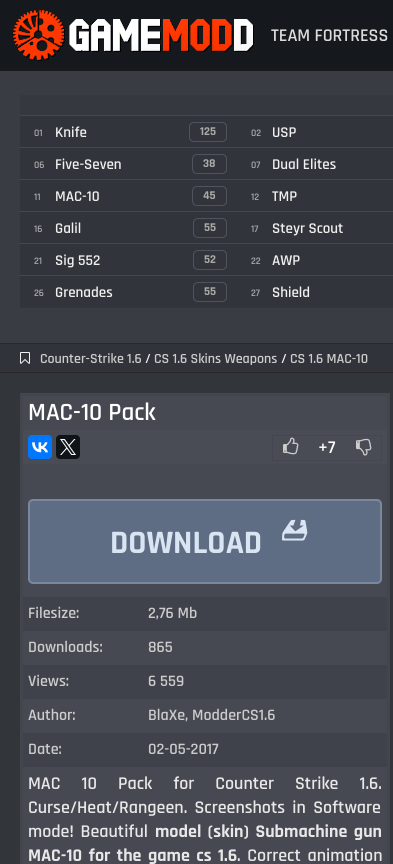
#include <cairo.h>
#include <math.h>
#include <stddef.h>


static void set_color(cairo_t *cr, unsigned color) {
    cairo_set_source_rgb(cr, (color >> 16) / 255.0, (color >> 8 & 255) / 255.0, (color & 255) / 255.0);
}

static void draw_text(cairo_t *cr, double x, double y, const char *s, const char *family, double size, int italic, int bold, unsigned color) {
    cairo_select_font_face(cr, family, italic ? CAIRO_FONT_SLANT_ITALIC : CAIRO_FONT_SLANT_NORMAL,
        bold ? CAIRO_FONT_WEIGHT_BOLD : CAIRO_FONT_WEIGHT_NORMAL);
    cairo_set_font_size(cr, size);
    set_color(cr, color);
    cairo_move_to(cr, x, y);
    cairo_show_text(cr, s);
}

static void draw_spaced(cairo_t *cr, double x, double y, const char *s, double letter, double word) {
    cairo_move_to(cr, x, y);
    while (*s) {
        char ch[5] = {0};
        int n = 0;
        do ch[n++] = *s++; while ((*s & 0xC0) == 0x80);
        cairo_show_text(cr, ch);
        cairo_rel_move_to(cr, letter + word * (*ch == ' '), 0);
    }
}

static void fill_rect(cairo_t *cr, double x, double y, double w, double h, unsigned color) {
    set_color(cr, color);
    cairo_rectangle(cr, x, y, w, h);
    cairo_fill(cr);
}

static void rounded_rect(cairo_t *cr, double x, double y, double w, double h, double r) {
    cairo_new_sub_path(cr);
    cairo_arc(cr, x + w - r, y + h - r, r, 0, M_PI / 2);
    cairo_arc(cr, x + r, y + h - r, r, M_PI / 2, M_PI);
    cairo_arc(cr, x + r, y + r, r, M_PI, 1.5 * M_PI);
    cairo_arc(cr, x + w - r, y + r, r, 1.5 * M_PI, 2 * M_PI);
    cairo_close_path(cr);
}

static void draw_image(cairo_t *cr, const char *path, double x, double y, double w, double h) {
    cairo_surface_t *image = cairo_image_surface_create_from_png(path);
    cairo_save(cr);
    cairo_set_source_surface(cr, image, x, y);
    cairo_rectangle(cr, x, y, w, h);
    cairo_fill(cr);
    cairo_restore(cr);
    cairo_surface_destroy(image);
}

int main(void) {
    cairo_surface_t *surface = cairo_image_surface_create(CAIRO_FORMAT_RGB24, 393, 864);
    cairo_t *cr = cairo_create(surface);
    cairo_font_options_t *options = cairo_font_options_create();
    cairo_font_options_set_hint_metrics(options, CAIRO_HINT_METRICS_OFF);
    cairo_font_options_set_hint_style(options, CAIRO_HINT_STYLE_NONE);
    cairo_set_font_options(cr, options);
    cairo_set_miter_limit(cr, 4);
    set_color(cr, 0x15181C);
    cairo_paint(cr);
    fill_rect(cr, 0, 71, 393, 272, 0x393C42);
    fill_rect(cr, 0, 69, 393, 2, 0x191919);
    draw_image(cr, "assets/img1.png", 13, 10, 241, 51);
    draw_image(cr, "assets/img2.png", 13, 10, 240, 50);
    draw_text(cr, 271, 41, "TEAM FORTRESS", "Rajdhani SemiBold", 18, 0, 0, 0xDCDCDC);
    fill_rect(cr, 20, 95, 373, 20, 0x35383E);
    fill_rect(cr, 20, 116, 373, 31, 0x31343A);
    fill_rect(cr, 20, 115, 373, 1, 0x46484E);
    draw_text(cr, 34, 136, "01", "Rajdhani SemiBold", 10, 0, 0, 0xAAAAAA);
    draw_text(cr, 55, 137, "Knife", "Rajdhani SemiBold", 15, 0, 0, 0xF0F0F0);
    rounded_rect(cr, 189.5, 122.5, 37, 19, 4.5);
    set_color(cr, 0x50545D);
    cairo_set_line_width(cr, 1);
    cairo_stroke(cr);
    draw_text(cr, 200, 135, "125", "Rajdhani", 12, 0, 1, 0xAAAAAA);
    draw_text(cr, 251, 136, "02", "Rajdhani SemiBold", 10, 0, 0, 0xAAAAAA);
    draw_text(cr, 272, 137, "USP", "Rajdhani SemiBold", 15, 0, 0, 0xF0F0F0);
    fill_rect(cr, 20, 148, 373, 31, 0x31343A);
    fill_rect(cr, 20, 147, 373, 1, 0x46484E);
    draw_text(cr, 34, 168, "06", "Rajdhani SemiBold", 10, 0, 0, 0xAAAAAA);
    draw_text(cr, 55, 169, "Five-Seven", "Rajdhani SemiBold", 15, 0, 0, 0xF0F0F0);
    rounded_rect(cr, 192.5, 154.5, 34, 19, 4.5);
    set_color(cr, 0x50545D);
    cairo_stroke(cr);
    draw_text(cr, 203, 167, "38", "Rajdhani", 12, 0, 1, 0xAAAAAA);
    draw_text(cr, 251, 168, "07", "Rajdhani SemiBold", 10, 0, 0, 0xAAAAAA);
    draw_text(cr, 272, 169, "Dual Elites", "Rajdhani SemiBold", 15, 0, 0, 0xF0F0F0);
    fill_rect(cr, 20, 180, 373, 31, 0x31343A);
    fill_rect(cr, 20, 179, 373, 1, 0x46484E);
    draw_text(cr, 34, 200, "11", "Rajdhani SemiBold", 10, 0, 0, 0xAAAAAA);
    draw_text(cr, 55, 201, "MAC-10", "Rajdhani SemiBold", 15, 0, 0, 0xF0F0F0);
    rounded_rect(cr, 192.5, 186.5, 34, 19, 4.5);
    set_color(cr, 0x50545D);
    cairo_stroke(cr);
    draw_text(cr, 203, 199, "45", "Rajdhani", 12, 0, 1, 0xAAAAAA);
    draw_text(cr, 251, 200, "12", "Rajdhani SemiBold", 10, 0, 0, 0xAAAAAA);
    draw_text(cr, 272, 201, "TMP", "Rajdhani SemiBold", 15, 0, 0, 0xF0F0F0);
    fill_rect(cr, 20, 212, 373, 31, 0x31343A);
    fill_rect(cr, 20, 211, 373, 1, 0x46484E);
    draw_text(cr, 34, 232, "16", "Rajdhani SemiBold", 10, 0, 0, 0xAAAAAA);
    draw_text(cr, 55, 233, "Galil", "Rajdhani SemiBold", 15, 0, 0, 0xF0F0F0);
    rounded_rect(cr, 193.5, 218.5, 33, 19, 4.5);
    set_color(cr, 0x50545D);
    cairo_stroke(cr);
    draw_text(cr, 204, 231, "55", "Rajdhani", 12, 0, 1, 0xAAAAAA);
    draw_text(cr, 251, 232, "17", "Rajdhani SemiBold", 10, 0, 0, 0xAAAAAA);
    draw_text(cr, 272, 233, "Steyr Scout", "Rajdhani SemiBold", 15, 0, 0, 0xF0F0F0);
    fill_rect(cr, 20, 244, 373, 31, 0x31343A);
    fill_rect(cr, 20, 243, 373, 1, 0x46484E);
    draw_text(cr, 34, 264, "21", "Rajdhani SemiBold", 10, 0, 0, 0xAAAAAA);
    draw_text(cr, 55, 265, "Sig 552", "Rajdhani SemiBold", 15, 0, 0, 0xF0F0F0);
    rounded_rect(cr, 193.5, 250.5, 33, 19, 4.5);
    set_color(cr, 0x50545D);
    cairo_stroke(cr);
    draw_text(cr, 204, 263, "52", "Rajdhani", 12, 0, 1, 0xAAAAAA);
    draw_text(cr, 251, 264, "22", "Rajdhani SemiBold", 10, 0, 0, 0xAAAAAA);
    draw_text(cr, 272, 265, "AWP", "Rajdhani SemiBold", 15, 0, 0, 0xF0F0F0);
    fill_rect(cr, 20, 307, 373, 1, 0x33363B);
    fill_rect(cr, 20, 276, 373, 31, 0x31343A);
    fill_rect(cr, 20, 275, 373, 1, 0x46484E);
    draw_text(cr, 34, 296, "26", "Rajdhani SemiBold", 10, 0, 0, 0xAAAAAA);
    draw_text(cr, 55, 297, "Grenades", "Rajdhani SemiBold", 15, 0, 0, 0xF0F0F0);
    rounded_rect(cr, 193.5, 282.5, 33, 19, 4.5);
    set_color(cr, 0x50545D);
    cairo_stroke(cr);
    draw_text(cr, 204, 295, "55", "Rajdhani", 12, 0, 1, 0xAAAAAA);
    draw_text(cr, 251, 296, "27", "Rajdhani SemiBold", 10, 0, 0, 0xAAAAAA);
    draw_text(cr, 272, 297, "Shield", "Rajdhani SemiBold", 15, 0, 0, 0xF0F0F0);
    fill_rect(cr, 0, 373, 393, 491, 0x32353A);
    fill_rect(cr, 0, 344, 393, 28, 0x31333A);
    fill_rect(cr, 0, 343, 393, 1, 0x2B2727);
    fill_rect(cr, 0, 372, 393, 1, 0x2B2727);
    draw_image(cr, "assets/img3.png", 20, 352, 10, 12);
    draw_text(cr, 40, 363, "Counter-Strike 1.6", "Rajdhani SemiBold", 14, 0, 0, 0xCCCCCC);
    draw_text(cr, 145, 363, "/", "Rajdhani SemiBold", 14, 0, 0, 0xF0F0F0);
    draw_text(cr, 154, 363, "CS 1.6 Skins Weapons", "Rajdhani SemiBold", 14, 0, 0, 0xCCCCCC);
    draw_text(cr, 281, 363, "/", "Rajdhani SemiBold", 14, 0, 0, 0xF0F0F0);
    draw_text(cr, 290, 363, "CS 1.6 MAC-10", "Rajdhani SemiBold", 14, 0, 0, 0xCCCCCC);
    set_color(cr, 0x464951);
    cairo_rectangle(cr, 21.5, 394.5, 367, 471);
    cairo_fill_preserve(cr);
    set_color(cr, 0x43464D);
    cairo_set_line_width(cr, 3);
    cairo_stroke(cr);
    draw_text(cr, 28, 420, "MAC-10 Pack", "Rajdhani SemiBold", 25, 0, 0, 0xFFFFFF);
    fill_rect(cr, 23, 430, 364, 34, 0x494C55);
    set_color(cr, 0x0077FF);
    rounded_rect(cr, 28, 435, 24, 24, 4);
    cairo_fill(cr);
    draw_image(cr, "assets/img4.png", 32, 442, 16, 11);
    set_color(cr, 0x0F1419);
    rounded_rect(cr, 56, 435, 24, 24, 4);
    cairo_fill(cr);
    draw_image(cr, "assets/img5.png", 60, 439, 16, 16);
    cairo_rectangle(cr, 272.5, 435.5, 109, 25);
    set_color(cr, 0x44474F);
    cairo_set_line_width(cr, 1);
    cairo_stroke(cr);
    draw_image(cr, "assets/img6.png", 283, 437, 16, 18);
    draw_text(cr, 318, 453, "+7", "Rajdhani SemiBold", 18, 0, 0, 0xFFFFFF);
    draw_image(cr, "assets/img7.png", 356, 438, 16, 18);
    set_color(cr, 0x5E6D83);
    rounded_rect(cr, 29, 500, 352, 83, 4);
    cairo_fill_preserve(cr);
    set_color(cr, 0x79889D);
    cairo_set_line_width(cr, 2);
    cairo_stroke(cr);
    draw_text(cr, 110, 553, "DOWNLOAD", "Rajdhani", 33, 0, 1, 0xDAE5F4);
    draw_image(cr, "assets/img8.png", 282, 519, 26, 22);
    fill_rect(cr, 23, 597, 364, 34, 0x3F424A);
    draw_text(cr, 28, 618, "Filesize:", "Rajdhani SemiBold", 16, 0, 0, 0xCCCCCC);
    draw_text(cr, 148, 618, "2,76 Mb", "Rajdhani SemiBold", 16, 0, 0, 0xCCCCCC);
    draw_text(cr, 28, 652, "Downloads:", "Rajdhani SemiBold", 16, 0, 0, 0xCCCCCC);
    draw_text(cr, 148, 652, "865", "Rajdhani SemiBold", 16, 0, 0, 0xCCCCCC);
    fill_rect(cr, 23, 665, 364, 34, 0x3F424A);
    draw_text(cr, 28, 686, "Views:", "Rajdhani SemiBold", 16, 0, 0, 0xCCCCCC);
    draw_text(cr, 148, 686, "6 559", "Rajdhani SemiBold", 16, 0, 0, 0xCCCCCC);
    draw_text(cr, 28, 720, "Author:", "Rajdhani SemiBold", 16, 0, 0, 0xCCCCCC);
    draw_text(cr, 148, 720, "BlaXe, ModderCS1.6", "Rajdhani SemiBold", 16, 0, 0, 0xCCCCCC);
    fill_rect(cr, 23, 733, 364, 34, 0x3F424A);
    draw_text(cr, 28, 754, "Date:", "Rajdhani SemiBold", 16, 0, 0, 0xCCCCCC);
    draw_text(cr, 148, 754, "02-05-2017", "Rajdhani SemiBold", 16, 0, 0, 0xCCCCCC);
    cairo_set_font_size(cr, 18);
    set_color(cr, 0xE8E8E8);
    draw_spaced(cr, 28, 789, "MAC 10 Pack for Counter Strike 1.6.", 0, 16.75);
    draw_spaced(cr, 28, 813, "Curse/Heat/Rangeen. Screenshots in Software", 0, 3);
    draw_spaced(cr, 28, 837, "mode! Beautiful", 0, 2.5);
    cairo_select_font_face(cr, "Rajdhani", CAIRO_FONT_SLANT_NORMAL, CAIRO_FONT_WEIGHT_BOLD);
    draw_spaced(cr, 155, 837, "model (skin) Submachine gun", 0, 2.5);
    draw_spaced(cr, 28, 861, "MAC-10 for the game cs 1.6", 0, 2.5);
    cairo_select_font_face(cr, "Rajdhani SemiBold", CAIRO_FONT_SLANT_NORMAL, CAIRO_FONT_WEIGHT_NORMAL);
    draw_spaced(cr, 237, 861, ". Correct animation", 0, 2.5);
    cairo_surface_write_to_png(surface, "output.png");
    cairo_font_options_destroy(options);
    cairo_destroy(cr);
    cairo_surface_destroy(surface);
    return 0;
}
